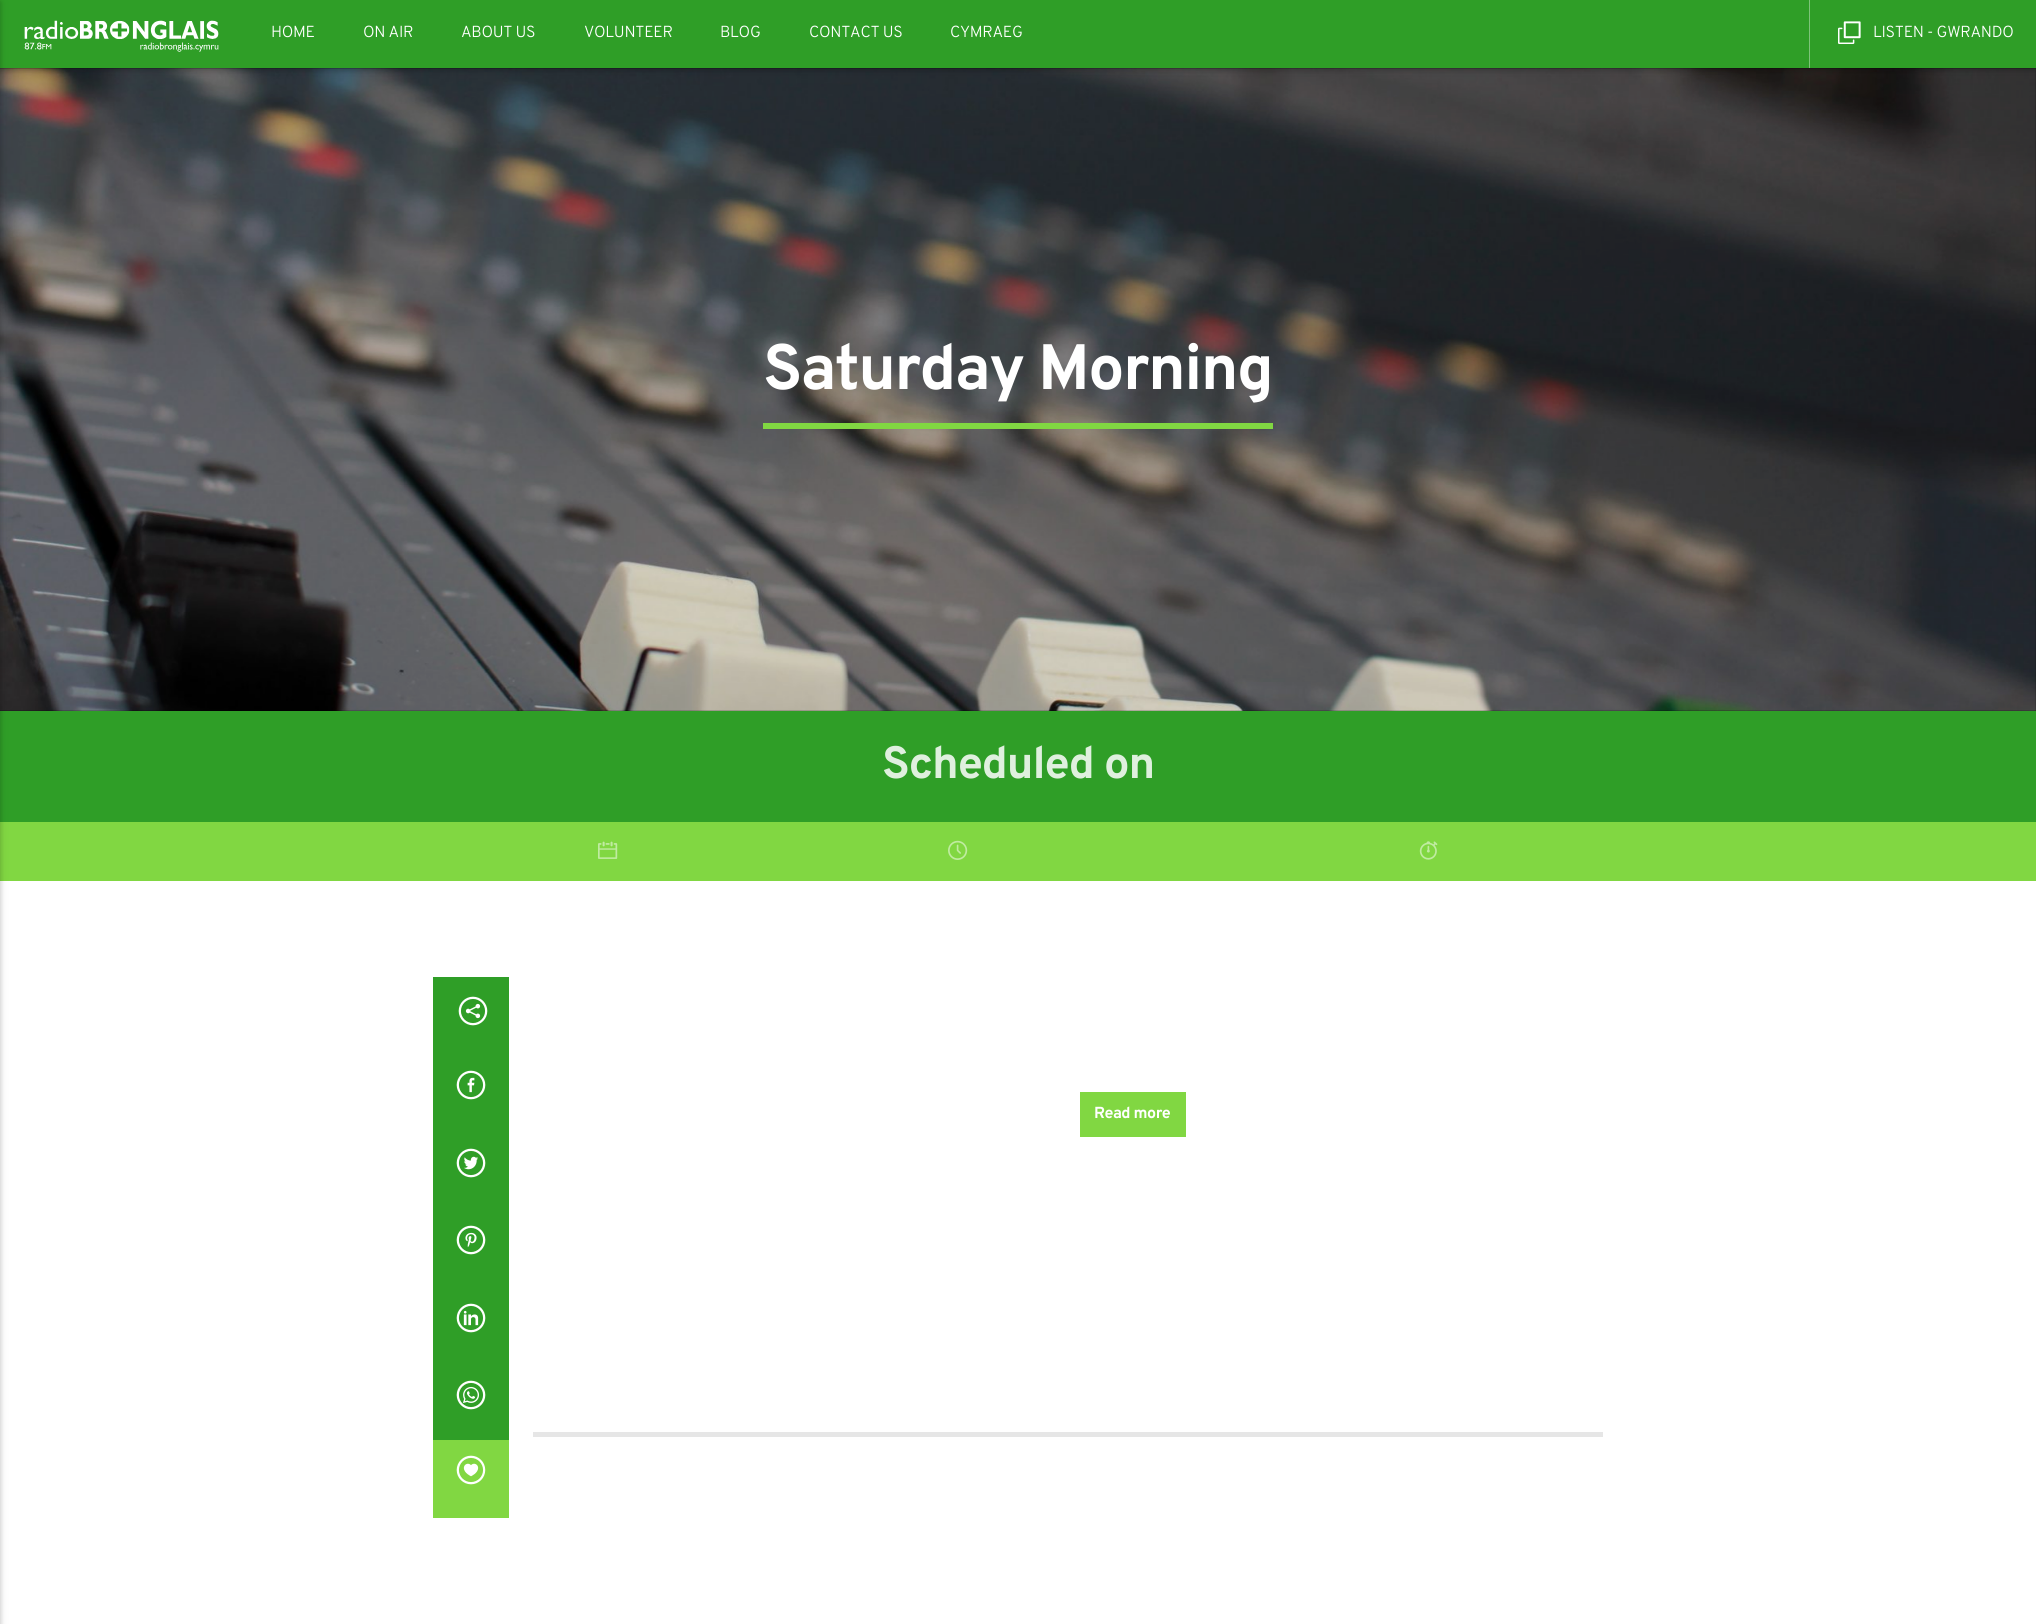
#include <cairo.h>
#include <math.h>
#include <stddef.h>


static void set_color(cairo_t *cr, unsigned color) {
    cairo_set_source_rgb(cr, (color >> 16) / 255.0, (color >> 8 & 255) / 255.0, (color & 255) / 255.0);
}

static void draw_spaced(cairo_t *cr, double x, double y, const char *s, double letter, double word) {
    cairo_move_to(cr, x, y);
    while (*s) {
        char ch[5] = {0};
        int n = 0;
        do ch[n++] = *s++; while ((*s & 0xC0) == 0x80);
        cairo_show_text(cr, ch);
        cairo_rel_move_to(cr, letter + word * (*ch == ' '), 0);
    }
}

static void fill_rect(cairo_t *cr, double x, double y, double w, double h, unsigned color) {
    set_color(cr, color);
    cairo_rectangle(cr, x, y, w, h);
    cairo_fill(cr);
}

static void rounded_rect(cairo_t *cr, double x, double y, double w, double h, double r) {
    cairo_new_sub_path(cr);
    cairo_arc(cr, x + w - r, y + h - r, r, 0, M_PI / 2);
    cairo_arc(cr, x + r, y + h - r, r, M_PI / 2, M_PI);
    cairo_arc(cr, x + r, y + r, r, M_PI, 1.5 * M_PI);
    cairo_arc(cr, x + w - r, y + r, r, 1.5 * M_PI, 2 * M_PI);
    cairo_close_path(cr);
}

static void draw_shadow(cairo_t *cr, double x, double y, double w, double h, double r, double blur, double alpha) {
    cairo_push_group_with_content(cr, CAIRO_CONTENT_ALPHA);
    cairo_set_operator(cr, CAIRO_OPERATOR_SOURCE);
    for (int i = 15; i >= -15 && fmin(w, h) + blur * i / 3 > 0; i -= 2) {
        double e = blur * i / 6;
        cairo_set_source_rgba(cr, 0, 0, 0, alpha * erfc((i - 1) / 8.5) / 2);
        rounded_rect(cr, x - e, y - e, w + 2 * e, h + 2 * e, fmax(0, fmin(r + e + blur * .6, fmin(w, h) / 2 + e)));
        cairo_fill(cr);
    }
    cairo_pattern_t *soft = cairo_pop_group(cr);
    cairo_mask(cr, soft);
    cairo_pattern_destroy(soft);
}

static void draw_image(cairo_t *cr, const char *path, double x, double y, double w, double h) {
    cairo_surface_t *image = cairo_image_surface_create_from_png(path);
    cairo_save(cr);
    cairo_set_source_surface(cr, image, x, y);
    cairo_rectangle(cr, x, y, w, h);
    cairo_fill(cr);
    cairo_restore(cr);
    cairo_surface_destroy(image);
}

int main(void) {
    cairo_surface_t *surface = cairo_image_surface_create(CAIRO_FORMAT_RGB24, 2036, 1624);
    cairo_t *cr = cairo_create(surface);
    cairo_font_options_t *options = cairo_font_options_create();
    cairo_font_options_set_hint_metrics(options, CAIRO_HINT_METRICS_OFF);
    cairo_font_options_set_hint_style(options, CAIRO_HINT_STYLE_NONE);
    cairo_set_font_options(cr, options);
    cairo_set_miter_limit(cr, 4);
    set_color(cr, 0xFFFFFF);
    cairo_paint(cr);
    fill_rect(cr, 0, 68, 2036, 643, 0x000000);
    draw_image(cr, "assets/img3.png", 0, 68, 2036, 643);
    set_color(cr, 0x000000);
    draw_shadow(cr, 0, 2, 2036, 68, 0, 5, 0.12);
    draw_shadow(cr, 0, 2, 2036, 68, 0, 2.5, 0.16);
    fill_rect(cr, 0, 0, 2036, 68, 0x2F9E27);
    fill_rect(cr, 0, 711, 2036, 111, 0x2F9E27);
    fill_rect(cr, 0, 822, 2036, 59, 0x81D742);
    set_color(cr, 0x000000);
    draw_shadow(cr, -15, 2, 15, 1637, 0, 5, 0.12);
    draw_shadow(cr, -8, 2, 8, 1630, 0, 2.5, 0.16);
    draw_image(cr, "assets/img1.png", 24, 20, 195, 32);
    cairo_select_font_face(cr, "Overpass Light", CAIRO_FONT_SLANT_NORMAL, CAIRO_FONT_WEIGHT_NORMAL);
    cairo_set_font_size(cr, 16);
    set_color(cr, 0xFFFFFF);
    draw_spaced(cr, 271, 37, "HOME", -0.3, 0);
    draw_spaced(cr, 363, 37, "ON AIR", -0.3, 0);
    draw_spaced(cr, 461, 37, "ABOUT US", -0.3, 0);
    draw_spaced(cr, 584, 37, "VOLUNTEER", -0.3, 0);
    draw_spaced(cr, 720, 37, "BLOG", -0.3, 0);
    draw_spaced(cr, 809, 37, "CONTACT US", -0.3, 0);
    draw_spaced(cr, 950, 37, "CYMRAEG", -0.3, 0);
    fill_rect(cr, 1809, 0, 1, 68, 0x7EC379);
    draw_image(cr, "assets/img2.png", 1838, 21, 23, 23);
    set_color(cr, 0xFFFFFF);
    draw_spaced(cr, 1873, 37, "LISTEN - GWRANDO", -0.3, 0);
    fill_rect(cr, 763, 423, 510, 6, 0x81D742);
    cairo_select_font_face(cr, "Overpass", CAIRO_FONT_SLANT_NORMAL, CAIRO_FONT_WEIGHT_BOLD);
    cairo_set_font_size(cr, 64);
    set_color(cr, 0xFFFFFF);
    draw_spaced(cr, 763, 389, "Saturday Morning", -1.6, 0);
    cairo_set_font_size(cr, 45.25);
    set_color(cr, 0xDFF0DE);
    draw_spaced(cr, 882, 778, "Scheduled on", -1.1, 0);
    draw_image(cr, "assets/img4.png", 598, 841, 20, 18);
    draw_image(cr, "assets/img5.png", 948, 840, 20, 20);
    draw_image(cr, "assets/img6.png", 1419, 841, 19, 19);
    fill_rect(cr, 433, 977, 76, 463, 0x2F9E27);
    draw_image(cr, "assets/img7.png", 458, 996, 30, 30);
    draw_image(cr, "assets/img8.png", 456, 1070, 30, 30);
    draw_image(cr, "assets/img9.png", 456, 1148, 30, 30);
    draw_image(cr, "assets/img10.png", 456, 1225, 30, 30);
    draw_image(cr, "assets/img11.png", 456, 1303, 30, 30);
    draw_image(cr, "assets/img12.png", 456, 1380, 30, 30);
    fill_rect(cr, 433, 1440, 76, 78, 0x81D742);
    draw_image(cr, "assets/img13.png", 456, 1455, 30, 30);
    fill_rect(cr, 533, 1432, 1070, 5, 0xE6E6E6);
    fill_rect(cr, 1080, 1092, 106, 45, 0x81D742);
    cairo_set_font_size(cr, 16);
    set_color(cr, 0xFFFFFF);
    draw_spaced(cr, 1094, 1118, "Read more", -0.5, 0);
    cairo_surface_write_to_png(surface, "output.png");
    cairo_font_options_destroy(options);
    cairo_destroy(cr);
    cairo_surface_destroy(surface);
    return 0;
}
